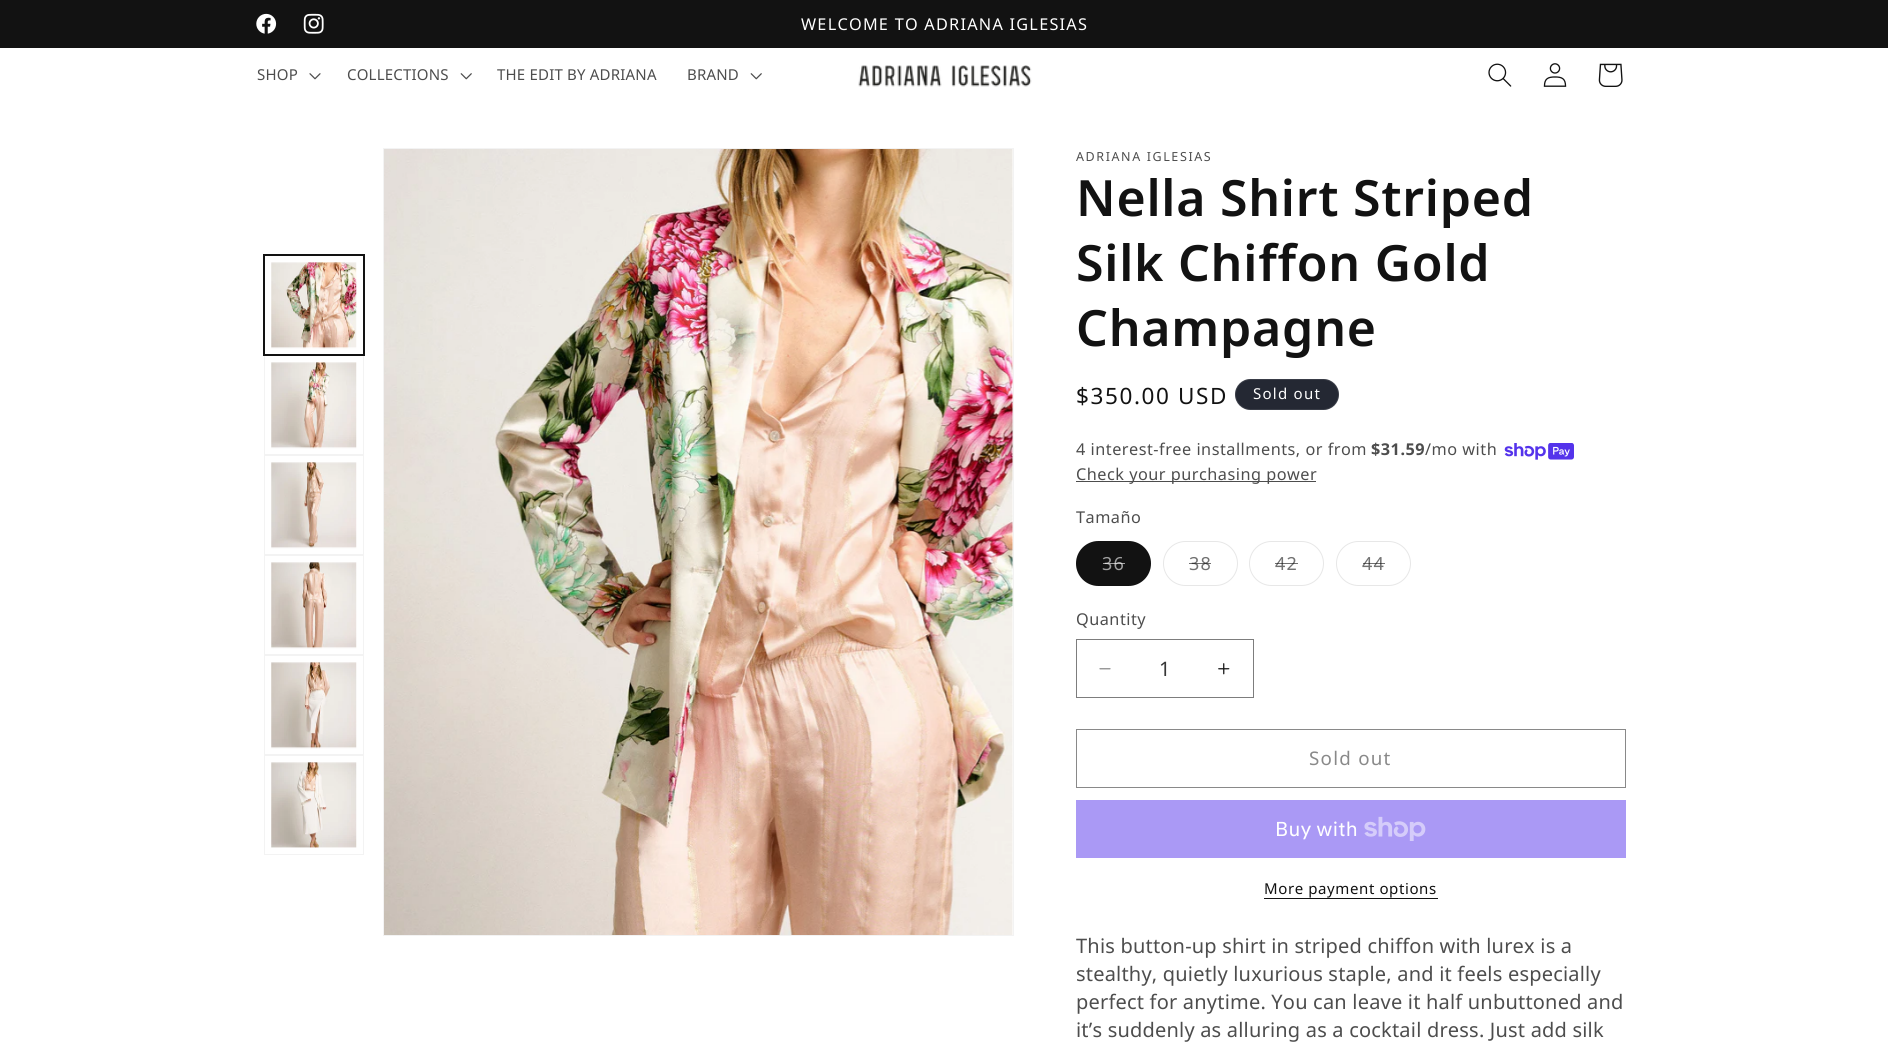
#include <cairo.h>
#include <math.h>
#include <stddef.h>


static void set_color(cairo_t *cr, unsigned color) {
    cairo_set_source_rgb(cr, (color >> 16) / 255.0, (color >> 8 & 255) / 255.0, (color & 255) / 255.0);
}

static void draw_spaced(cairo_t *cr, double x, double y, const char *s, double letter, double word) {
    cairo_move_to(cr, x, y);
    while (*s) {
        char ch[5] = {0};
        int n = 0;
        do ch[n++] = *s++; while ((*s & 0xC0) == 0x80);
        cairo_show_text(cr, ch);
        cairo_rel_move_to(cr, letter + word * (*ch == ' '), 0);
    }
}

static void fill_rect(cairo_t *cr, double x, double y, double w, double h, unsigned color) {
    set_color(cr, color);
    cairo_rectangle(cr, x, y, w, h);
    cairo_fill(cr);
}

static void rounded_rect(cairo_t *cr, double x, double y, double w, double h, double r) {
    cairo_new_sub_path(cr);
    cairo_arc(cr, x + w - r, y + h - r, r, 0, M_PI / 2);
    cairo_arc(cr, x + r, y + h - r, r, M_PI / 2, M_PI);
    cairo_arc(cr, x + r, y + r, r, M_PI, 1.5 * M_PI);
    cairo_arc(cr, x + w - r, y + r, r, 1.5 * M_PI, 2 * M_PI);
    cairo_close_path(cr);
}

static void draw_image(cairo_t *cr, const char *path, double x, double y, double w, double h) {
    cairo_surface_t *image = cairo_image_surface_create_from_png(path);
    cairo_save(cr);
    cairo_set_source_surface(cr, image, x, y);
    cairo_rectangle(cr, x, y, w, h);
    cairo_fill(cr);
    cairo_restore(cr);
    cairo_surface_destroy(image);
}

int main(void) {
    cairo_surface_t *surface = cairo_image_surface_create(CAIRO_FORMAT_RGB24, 1888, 1053);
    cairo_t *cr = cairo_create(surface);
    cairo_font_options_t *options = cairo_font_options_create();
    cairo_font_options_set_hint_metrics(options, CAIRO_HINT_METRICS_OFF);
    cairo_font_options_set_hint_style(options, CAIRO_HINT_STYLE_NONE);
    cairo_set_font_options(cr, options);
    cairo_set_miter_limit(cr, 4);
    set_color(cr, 0xFFFFFF);
    cairo_paint(cr);
    fill_rect(cr, 0, 0, 1888, 48, 0x121212);
    draw_image(cr, "assets/img1.png", 256, 13, 21, 21);
    draw_image(cr, "assets/img2.png", 303, 13, 21, 21);
    cairo_select_font_face(cr, "Noto Sans", CAIRO_FONT_SLANT_NORMAL, CAIRO_FONT_WEIGHT_NORMAL);
    cairo_set_font_size(cr, 16.25);
    set_color(cr, 0xFFFFFF);
    draw_spaced(cr, 801, 30, "WELCOME TO ADRIANA IGLESIAS", 1.25, 0);
    cairo_set_font_size(cr, 15);
    set_color(cr, 0x4D4D4D);
    draw_spaced(cr, 257, 80, "SHOP", 0.2, 0);
    draw_image(cr, "assets/img3.png", 309, 73, 12, 7);
    draw_spaced(cr, 347, 80, "COLLECTIONS", 0.2, 0);
    draw_image(cr, "assets/img4.png", 460, 73, 12, 7);
    draw_spaced(cr, 497, 80, "THE EDIT BY ADRIANA", 0.2, 0);
    draw_spaced(cr, 687, 80, "BRAND", 0.2, 0);
    draw_image(cr, "assets/img4.png", 750, 73, 12, 7);
    draw_image(cr, "assets/img5.png", 858, 65, 174, 22);
    draw_image(cr, "assets/img6.png", 1488, 63, 24, 24);
    draw_image(cr, "assets/img7.png", 1543, 63, 24, 24);
    draw_image(cr, "assets/img8.png", 1598, 63, 25, 24);
    cairo_rectangle(cr, 263.5, 254.5, 101, 101);
    set_color(cr, 0x121212);
    cairo_set_line_width(cr, 1);
    cairo_stroke(cr);
    cairo_rectangle(cr, 264.5, 255.5, 99, 99);
    cairo_stroke(cr);
    draw_image(cr, "assets/img9.png", 271, 262, 86, 87);
    cairo_rectangle(cr, 264.5, 355.5, 99, 99);
    cairo_set_source_rgba(cr, 0.071, 0.071, 0.071, 0.05);
    cairo_stroke(cr);
    draw_image(cr, "assets/img10.png", 271, 362, 86, 87);
    cairo_rectangle(cr, 264.5, 455.5, 99, 99);
    set_color(cr, 0xF3F3F3);
    cairo_stroke(cr);
    draw_image(cr, "assets/img11.png", 271, 462, 86, 87);
    cairo_rectangle(cr, 264.5, 555.5, 99, 99);
    cairo_stroke(cr);
    draw_image(cr, "assets/img12.png", 271, 562, 86, 87);
    cairo_rectangle(cr, 264.5, 655.5, 99, 99);
    cairo_stroke(cr);
    draw_image(cr, "assets/img13.png", 271, 662, 86, 87);
    cairo_rectangle(cr, 264.5, 755.5, 99, 99);
    cairo_stroke(cr);
    draw_image(cr, "assets/img14.png", 271, 762, 86, 86);
    cairo_rectangle(cr, 383.5, 148.5, 630, 787);
    cairo_stroke(cr);
    draw_image(cr, "assets/img15.png", 384, 149, 629, 786);
    cairo_set_font_size(cr, 12.5);
    set_color(cr, 0x4D4D4D);
    draw_spaced(cr, 1076, 161, "ADRIANA IGLESIAS", 1.6, 0);
    cairo_select_font_face(cr, "Noto Sans SemiBold", CAIRO_FONT_SLANT_NORMAL, CAIRO_FONT_WEIGHT_NORMAL);
    cairo_set_font_size(cr, 50);
    set_color(cr, 0x121212);
    draw_spaced(cr, 1076, 216, "Nella Shirt Striped", 0.75, 0);
    draw_spaced(cr, 1076, 281, "Silk Chiffon Gold", 0.75, 0);
    draw_spaced(cr, 1076, 346, "Champagne", 0.75, 0);
    cairo_select_font_face(cr, "Noto Sans", CAIRO_FONT_SLANT_NORMAL, CAIRO_FONT_WEIGHT_NORMAL);
    cairo_set_font_size(cr, 22.5);
    draw_spaced(cr, 1076, 404, "$350.00 USD", 1.6, 0);
    set_color(cr, 0x242833);
    rounded_rect(cr, 1235, 379, 104, 31, 15.5);
    cairo_fill(cr);
    rounded_rect(cr, 1235.5, 379.5, 103, 30, 15);
    cairo_set_source_rgba(cr, 1, 1, 1, 0.1);
    cairo_stroke(cr);
    cairo_set_font_size(cr, 15);
    set_color(cr, 0xFFFFFF);
    draw_spaced(cr, 1253, 399, "Sold out", 1.25, 0);
    cairo_set_font_size(cr, 16.25);
    set_color(cr, 0x4D4D4D);
    draw_spaced(cr, 1076, 455, "4 interest-free installments, or from", 0.5, 0);
    cairo_select_font_face(cr, "Noto Sans", CAIRO_FONT_SLANT_NORMAL, CAIRO_FONT_WEIGHT_BOLD);
    draw_spaced(cr, 1371, 455, "$31.59", 0.5, 0);
    cairo_select_font_face(cr, "Noto Sans", CAIRO_FONT_SLANT_NORMAL, CAIRO_FONT_WEIGHT_NORMAL);
    draw_spaced(cr, 1425, 455, "/mo with", 0.5, 0);
    draw_image(cr, "assets/img16.png", 1504, 443, 70, 17);
    fill_rect(cr, 1076, 481, 240, 1, 0x4D4D4D);
    draw_spaced(cr, 1076, 480, "Check your purchasing power", 0.5, 0);
    draw_spaced(cr, 1076, 523, "Tamaño", 0.5, 0);
    set_color(cr, 0x121212);
    rounded_rect(cr, 1076, 541, 75, 45, 22.5);
    cairo_fill(cr);
    rounded_rect(cr, 1076.5, 541.5, 74, 44, 22);
    cairo_set_source_rgba(cr, 0.071, 0.071, 0.071, 0.1);
    cairo_stroke(cr);
    cairo_set_font_size(cr, 18);
    set_color(cr, 0xA0A0A0);
    draw_spaced(cr, 1102, 570, "36", 1.25, 0);
    cairo_set_source_rgba(cr, 1, 1, 1, 0.6);
    cairo_rectangle(cr, 1103, 563, 22, 1);
    cairo_fill(cr);
    rounded_rect(cr, 1163.5, 541.5, 74, 44, 22);
    set_color(cr, 0xE7E7E7);
    cairo_stroke(cr);
    set_color(cr, 0x717171);
    draw_spaced(cr, 1189, 570, "38", 1.25, 0);
    cairo_set_source_rgba(cr, 0.071, 0.071, 0.071, 0.6);
    cairo_rectangle(cr, 1189, 563, 22, 1);
    cairo_fill(cr);
    rounded_rect(cr, 1249.5, 541.5, 74, 44, 22);
    set_color(cr, 0xE7E7E7);
    cairo_stroke(cr);
    set_color(cr, 0x717171);
    draw_spaced(cr, 1275, 570, "42", 1.25, 0);
    cairo_set_source_rgba(cr, 0.071, 0.071, 0.071, 0.6);
    cairo_rectangle(cr, 1275, 563, 23, 1);
    cairo_fill(cr);
    rounded_rect(cr, 1336.5, 541.5, 74, 44, 22);
    set_color(cr, 0xE7E7E7);
    cairo_stroke(cr);
    set_color(cr, 0x717171);
    draw_spaced(cr, 1362, 570, "44", 1.25, 0);
    cairo_set_source_rgba(cr, 0.071, 0.071, 0.071, 0.6);
    cairo_rectangle(cr, 1363, 563, 22, 1);
    cairo_fill(cr);
    cairo_set_font_size(cr, 16.25);
    set_color(cr, 0x4D4D4D);
    draw_spaced(cr, 1076, 625, "Quantity", 0.5, 0);
    draw_image(cr, "assets/img17.png", 1099, 668, 12, 2);
    draw_image(cr, "assets/img18.png", 1218, 663, 12, 12);
    cairo_rectangle(cr, 1076.5, 639.5, 177, 58);
    set_color(cr, 0x7D7D7D);
    cairo_stroke(cr);
    cairo_set_font_size(cr, 20);
    set_color(cr, 0x363636);
    draw_spaced(cr, 1159, 676, "1", 0.2, 0);
    cairo_rectangle(cr, 1076.5, 729.5, 549, 58);
    set_color(cr, 0x898989);
    cairo_stroke(cr);
    cairo_set_font_size(cr, 18.75);
    draw_spaced(cr, 1309, 765, "Sold out", 1.25, 0);
    fill_rect(cr, 1076, 800, 550, 58, 0xAA99F5);
    cairo_select_font_face(cr, "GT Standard", CAIRO_FONT_SLANT_NORMAL, CAIRO_FONT_WEIGHT_NORMAL);
    cairo_set_font_size(cr, 20);
    set_color(cr, 0xFFFFFF);
    draw_spaced(cr, 1275, 836, "Buy with", 0.2, 0);
    draw_image(cr, "assets/img19.png", 1364, 816, 62, 25);
    cairo_select_font_face(cr, "Noto Sans", CAIRO_FONT_SLANT_NORMAL, CAIRO_FONT_WEIGHT_NORMAL);
    cairo_set_font_size(cr, 15);
    set_color(cr, 0x121212);
    draw_spaced(cr, 1264, 894, "More payment options", 0.6, 0);
    fill_rect(cr, 1264, 898, 174, 1, 0x121212);
    cairo_set_font_size(cr, 20);
    set_color(cr, 0x4D4D4D);
    draw_spaced(cr, 1076, 953, "This button-up shirt in striped chiffon with lurex is a", 0.2, 0);
    draw_spaced(cr, 1076, 981, "stealthy, quietly luxurious staple, and it feels especially", 0.2, 0);
    draw_spaced(cr, 1076, 1009, "perfect for anytime. You can leave it half unbuttoned and", 0.2, 0);
    draw_spaced(cr, 1076, 1037, "it’s suddenly as alluring as a cocktail dress. Just add silk", 0.2, 0);
    cairo_surface_write_to_png(surface, "output.png");
    cairo_font_options_destroy(options);
    cairo_destroy(cr);
    cairo_surface_destroy(surface);
    return 0;
}
